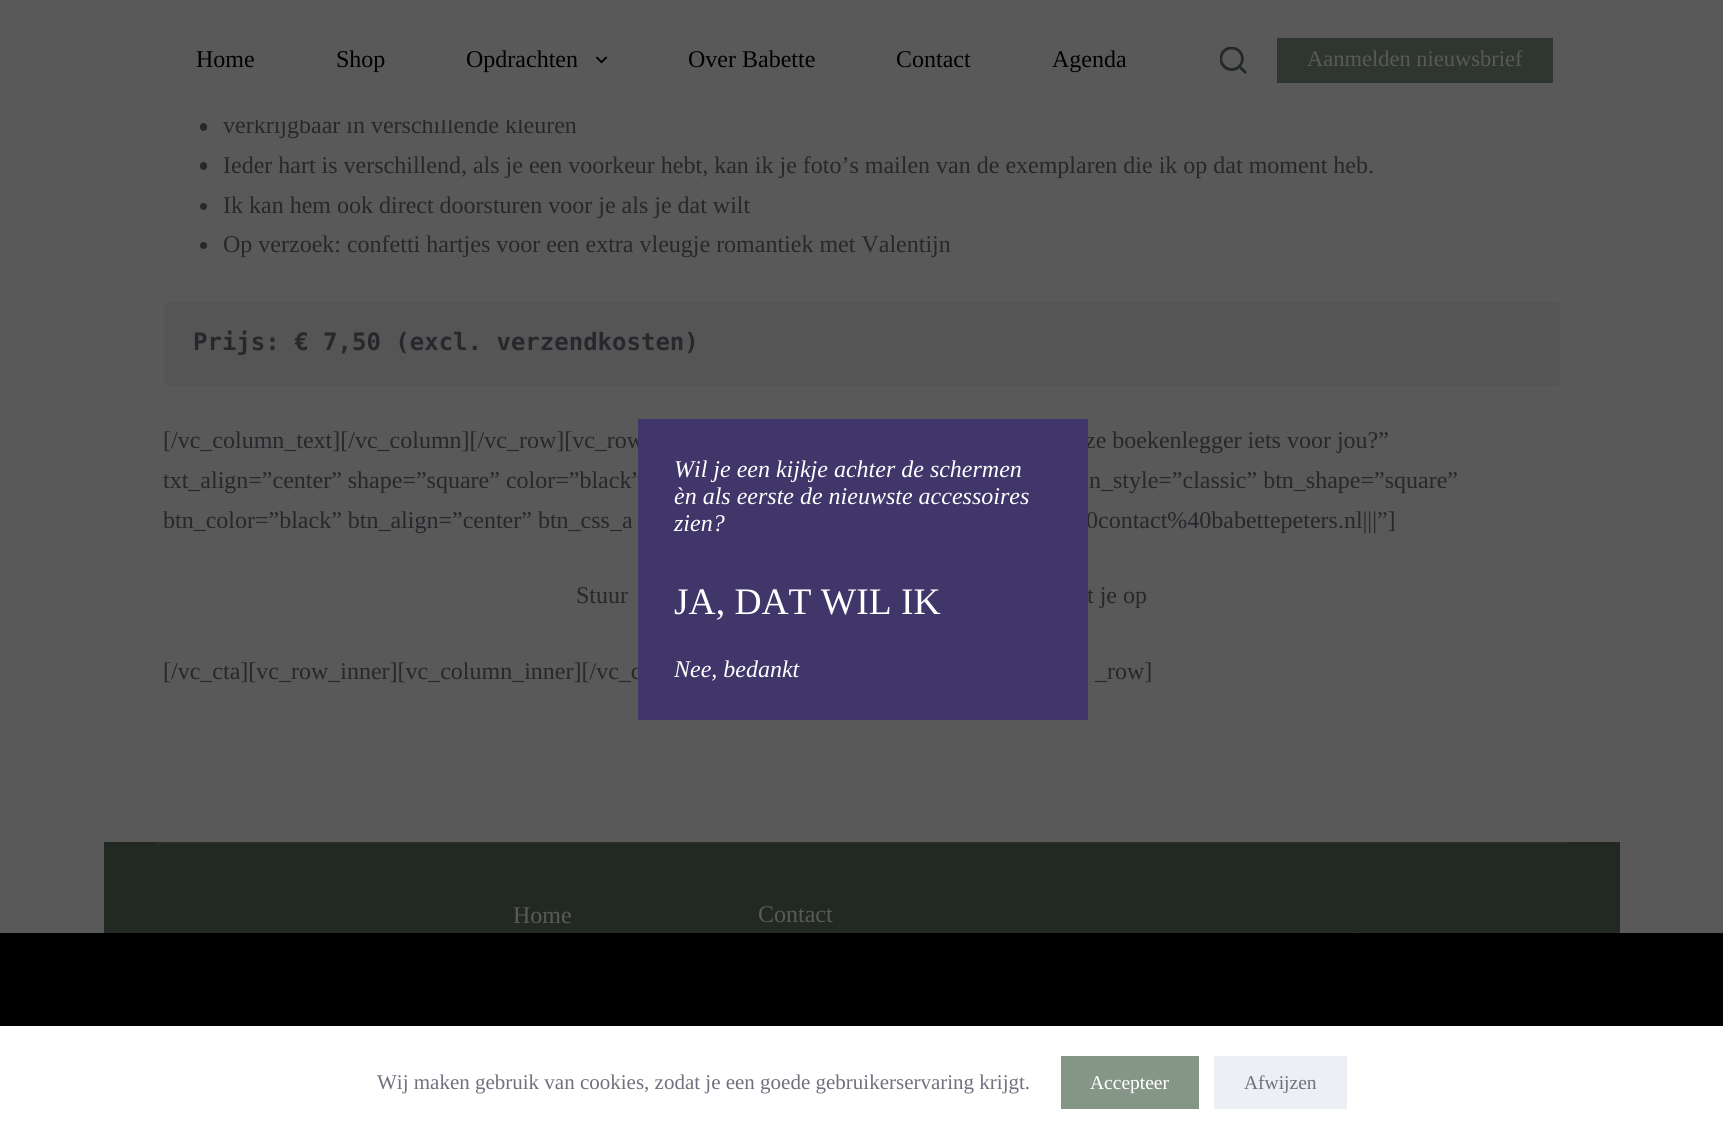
#include <cairo.h>
#include <math.h>
#include <stddef.h>


static void set_color(cairo_t *cr, unsigned color) {
    cairo_set_source_rgb(cr, (color >> 16) / 255.0, (color >> 8 & 255) / 255.0, (color & 255) / 255.0);
}

static void draw_text(cairo_t *cr, double x, double y, const char *s, const char *family, double size, int italic, int bold, unsigned color) {
    cairo_select_font_face(cr, family, italic ? CAIRO_FONT_SLANT_ITALIC : CAIRO_FONT_SLANT_NORMAL,
        bold ? CAIRO_FONT_WEIGHT_BOLD : CAIRO_FONT_WEIGHT_NORMAL);
    cairo_set_font_size(cr, size);
    set_color(cr, color);
    cairo_move_to(cr, x, y);
    cairo_show_text(cr, s);
}

static void fill_rect(cairo_t *cr, double x, double y, double w, double h, unsigned color) {
    set_color(cr, color);
    cairo_rectangle(cr, x, y, w, h);
    cairo_fill(cr);
}

static void rounded_rect(cairo_t *cr, double x, double y, double w, double h, double r) {
    cairo_new_sub_path(cr);
    cairo_arc(cr, x + w - r, y + h - r, r, 0, M_PI / 2);
    cairo_arc(cr, x + r, y + h - r, r, M_PI / 2, M_PI);
    cairo_arc(cr, x + r, y + r, r, M_PI, 1.5 * M_PI);
    cairo_arc(cr, x + w - r, y + r, r, 1.5 * M_PI, 2 * M_PI);
    cairo_close_path(cr);
}

static void draw_image(cairo_t *cr, const char *path, double x, double y, double w, double h) {
    cairo_surface_t *image = cairo_image_surface_create_from_png(path);
    cairo_save(cr);
    cairo_set_source_surface(cr, image, x, y);
    cairo_rectangle(cr, x, y, w, h);
    cairo_fill(cr);
    cairo_restore(cr);
    cairo_surface_destroy(image);
}

int main(void) {
    cairo_surface_t *surface = cairo_image_surface_create(CAIRO_FORMAT_RGB24, 1723, 1138);
    cairo_t *cr = cairo_create(surface);
    cairo_font_options_t *options = cairo_font_options_create();
    cairo_font_options_set_hint_metrics(options, CAIRO_HINT_METRICS_OFF);
    cairo_font_options_set_hint_style(options, CAIRO_HINT_STYLE_NONE);
    cairo_set_font_options(cr, options);
    cairo_set_miter_limit(cr, 4);
    set_color(cr, 0x595959);
    cairo_paint(cr);
    draw_text(cr, 223, 133, "verkrijgbaar in verschillende kleuren", "Liberation Serif", 24, 0, 0, 0x27272C);
    fill_rect(cr, 254, 116, 268, 4, 0x595959);
    draw_text(cr, 196, 67, "Home", "Liberation Serif", 24, 0, 0, 0x010102);
    draw_text(cr, 336, 67, "Shop", "Liberation Serif", 24, 0, 0, 0x010102);
    draw_text(cr, 466, 67, "Opdrachten", "Liberation Serif", 24, 0, 0, 0x010102);
    draw_image(cr, "assets/img1.png", 596, 56, 12, 8);
    draw_text(cr, 688, 67, "Over Babette", "Liberation Serif", 24, 0, 0, 0x010102);
    draw_text(cr, 896, 67, "Contact", "Liberation Serif", 24, 0, 0, 0x010102);
    draw_text(cr, 1052, 67, "Agenda", "Liberation Serif", 24, 0, 0, 0x010102);
    draw_image(cr, "assets/img2.png", 1220, 47, 27, 27);
    fill_rect(cr, 1277, 38, 276, 45, 0x2F352F);
    draw_text(cr, 1307, 66, "Aanmelden nieuwsbrief", "Liberation Serif", 22.5, 0, 0, 0x595959);
    set_color(cr, 0x27272C);
    rounded_rect(cr, 200, 123, 7, 8, 3.5);
    cairo_fill(cr);
    rounded_rect(cr, 200, 162, 7, 8, 3.5);
    cairo_fill(cr);
    draw_text(cr, 223, 173, "Ieder hart is verschillend, als je een voorkeur hebt, kan ik je foto’s mailen van de exemplaren die ik op dat moment heb.", "Liberation Serif", 24, 0, 0, 0x27272C);
    cairo_new_path(cr);
    cairo_arc(cr, 203.5, 206.5, 3.5, 0, 2 * M_PI);
    cairo_fill(cr);
    draw_text(cr, 223, 213, "Ik kan hem ook direct doorsturen voor je als je dat wilt", "Liberation Serif", 24, 0, 0, 0x27272C);
    cairo_new_path(cr);
    cairo_arc(cr, 203.5, 245.5, 3.5, 0, 2 * M_PI);
    cairo_fill(cr);
    draw_text(cr, 223, 252, "Op verzoek: confetti hartjes voor een extra vleugje romantiek met Valentijn", "Liberation Serif", 24, 0, 0, 0x27272C);
    set_color(cr, 0x555556);
    rounded_rect(cr, 164, 302, 1396, 84, 5);
    cairo_fill(cr);
    draw_text(cr, 193, 350, "Prijs: € 7,50 (excl. verzendkosten)", "DejaVu Sans Mono", 24, 0, 1, 0x27272C);
    draw_text(cr, 163, 448, "[/vc_column_text][/vc_column][/vc_row][vc_row", "Liberation Serif", 24, 0, 0, 0x27272C);
    draw_text(cr, 1085, 448, "ze boekenlegger iets voor jou?”", "Liberation Serif", 24, 0, 0, 0x27272C);
    draw_text(cr, 163, 488, "txt_align=”center” shape=”square” color=”black”", "Liberation Serif", 24, 0, 0, 0x27272C);
    draw_text(cr, 1089, 488, "n_style=”classic” btn_shape=”square”", "Liberation Serif", 24, 0, 0, 0x27272C);
    draw_text(cr, 163, 528, "btn_color=”black” btn_align=”center” btn_css_a", "Liberation Serif", 24, 0, 0, 0x27272C);
    draw_text(cr, 1086, 528, "0contact%40babettepeters.nl|||”]", "Liberation Serif", 24, 0, 0, 0x27272C);
    draw_text(cr, 576, 603, "Stuur", "Liberation Serif", 24, 0, 0, 0x27272C);
    draw_text(cr, 1087, 603, "t je op", "Liberation Serif", 24, 0, 0, 0x27272C);
    draw_text(cr, 163, 679, "[/vc_cta][vc_row_inner][vc_column_inner][/vc_c", "Liberation Serif", 24, 0, 0, 0x27272C);
    draw_text(cr, 1095, 679, "_row]", "Liberation Serif", 24, 0, 0, 0x27272C);
    fill_rect(cr, 104, 842, 1516, 91, 0x222922);
    fill_rect(cr, 156, 842, 1412, 2, 0x282E28);
    draw_text(cr, 513, 923, "Home", "Liberation Serif", 24, 0, 0, 0x595959);
    draw_text(cr, 758, 922, "Contact", "Liberation Serif", 24, 0, 0, 0x595959);
    draw_image(cr, "assets/img3.png", 1356, 932, 3, 1);
    fill_rect(cr, 638, 419, 450, 301, 0x41366A);
    draw_text(cr, 674, 477, "Wil je een kijkje achter de schermen", "Liberation Serif", 24, 1, 0, 0xFFFFFF);
    draw_text(cr, 674, 504, "èn als eerste de nieuwste accessoires", "Liberation Serif", 24, 1, 0, 0xFFFFFF);
    draw_text(cr, 674, 531, "zien?", "Liberation Serif", 24, 1, 0, 0xFFFFFF);
    draw_text(cr, 674, 614, "JA, DAT WIL IK", "Liberation Serif", 37.5, 0, 0, 0xFFFFFF);
    draw_text(cr, 674, 677, "Nee, bedankt", "Liberation Serif", 24, 1, 0, 0xFFFFFF);
    fill_rect(cr, 0, 933, 1723, 93, 0x000000);
    fill_rect(cr, 0, 1026, 1723, 112, 0xFFFFFF);
    draw_text(cr, 377, 1089, "Wij maken gebruik van cookies, zodat je een goede gebruikerservaring krijgt.", "Liberation Serif", 21, 0, 0, 0x70707E);
    fill_rect(cr, 1061, 1056, 138, 53, 0x869686);
    draw_text(cr, 1090, 1089, "Accepteer", "Liberation Serif", 19.5, 0, 0, 0xFFFFFF);
    fill_rect(cr, 1214, 1056, 133, 53, 0xECEFF3);
    draw_text(cr, 1244, 1089, "Afwijzen", "Liberation Serif", 19.5, 0, 0, 0x70707E);
    cairo_surface_write_to_png(surface, "output.png");
    cairo_font_options_destroy(options);
    cairo_destroy(cr);
    cairo_surface_destroy(surface);
    return 0;
}
